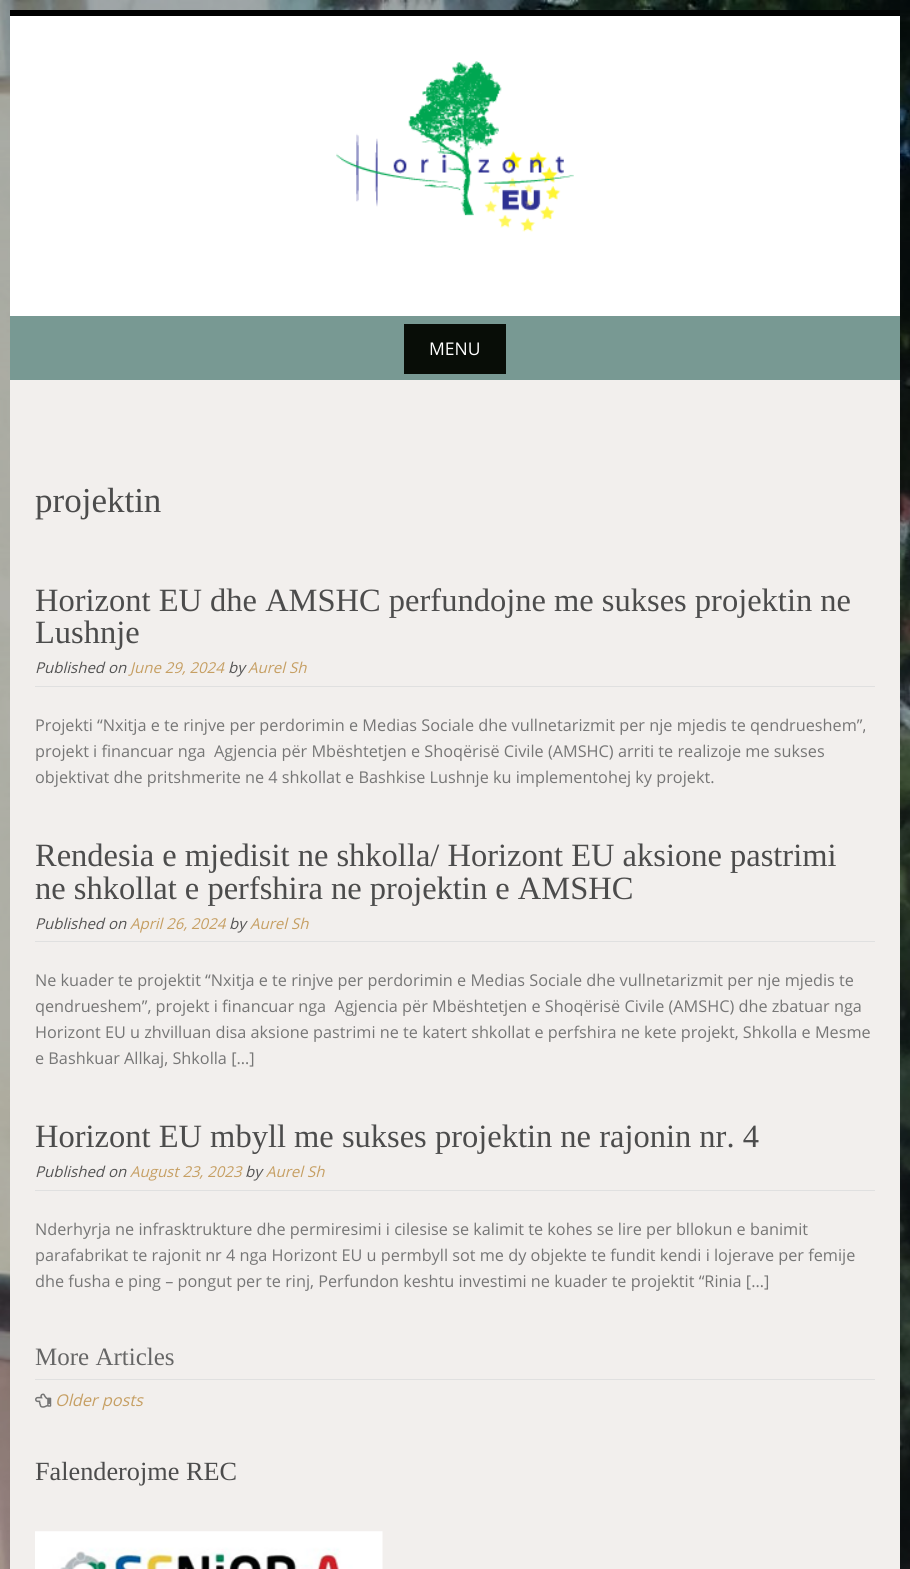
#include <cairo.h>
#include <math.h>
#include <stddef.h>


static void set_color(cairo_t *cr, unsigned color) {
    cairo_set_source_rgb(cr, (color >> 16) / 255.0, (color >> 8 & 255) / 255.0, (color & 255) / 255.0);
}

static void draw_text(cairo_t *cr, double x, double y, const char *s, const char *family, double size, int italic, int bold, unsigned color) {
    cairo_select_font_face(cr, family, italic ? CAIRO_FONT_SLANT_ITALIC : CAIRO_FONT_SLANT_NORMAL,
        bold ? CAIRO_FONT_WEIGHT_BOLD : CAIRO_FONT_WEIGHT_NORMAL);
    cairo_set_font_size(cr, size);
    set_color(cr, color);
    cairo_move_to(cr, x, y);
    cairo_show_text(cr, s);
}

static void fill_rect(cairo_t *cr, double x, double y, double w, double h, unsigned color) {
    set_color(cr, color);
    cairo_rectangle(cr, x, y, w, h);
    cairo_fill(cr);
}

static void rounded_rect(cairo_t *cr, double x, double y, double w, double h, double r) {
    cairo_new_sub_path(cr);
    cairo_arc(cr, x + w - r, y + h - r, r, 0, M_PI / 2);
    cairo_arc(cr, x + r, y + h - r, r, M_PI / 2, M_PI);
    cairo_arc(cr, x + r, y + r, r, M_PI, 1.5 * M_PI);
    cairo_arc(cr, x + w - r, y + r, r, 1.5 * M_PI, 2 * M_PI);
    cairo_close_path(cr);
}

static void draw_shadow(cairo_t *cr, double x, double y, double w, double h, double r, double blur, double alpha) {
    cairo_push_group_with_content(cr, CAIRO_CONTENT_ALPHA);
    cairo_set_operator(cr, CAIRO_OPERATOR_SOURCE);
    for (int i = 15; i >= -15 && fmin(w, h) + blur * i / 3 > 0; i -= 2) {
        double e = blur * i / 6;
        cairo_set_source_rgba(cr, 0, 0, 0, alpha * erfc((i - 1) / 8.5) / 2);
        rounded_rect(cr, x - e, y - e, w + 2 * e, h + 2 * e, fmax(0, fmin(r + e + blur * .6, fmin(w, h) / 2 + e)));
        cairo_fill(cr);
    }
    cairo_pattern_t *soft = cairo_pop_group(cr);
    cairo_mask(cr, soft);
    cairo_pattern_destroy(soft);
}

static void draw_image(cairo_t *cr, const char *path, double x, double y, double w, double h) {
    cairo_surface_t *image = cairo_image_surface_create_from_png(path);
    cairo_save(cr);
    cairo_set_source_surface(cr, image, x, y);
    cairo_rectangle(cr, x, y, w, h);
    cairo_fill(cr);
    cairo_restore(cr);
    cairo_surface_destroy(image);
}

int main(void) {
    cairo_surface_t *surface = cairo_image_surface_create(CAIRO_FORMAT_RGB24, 910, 1569);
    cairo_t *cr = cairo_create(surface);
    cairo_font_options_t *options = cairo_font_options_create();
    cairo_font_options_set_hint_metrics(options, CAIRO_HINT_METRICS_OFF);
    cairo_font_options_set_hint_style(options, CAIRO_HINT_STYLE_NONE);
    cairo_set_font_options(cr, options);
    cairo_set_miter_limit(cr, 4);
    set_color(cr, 0xFFFFFF);
    cairo_paint(cr);
    draw_image(cr, "assets/img1.png", 0, 0, 910, 1569);
    set_color(cr, 0x000000);
    draw_shadow(cr, -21, -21, 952, 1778, 0, 62.5, 0.5);
    fill_rect(cr, 10, 10, 890, 6, 0x000000);
    fill_rect(cr, 10, 16, 890, 300, 0xFFFFFF);
    draw_image(cr, "assets/img2.png", 336, 61, 238, 171);
    fill_rect(cr, 10, 316, 890, 64, 0x789993);
    fill_rect(cr, 404, 324, 102, 50, 0x080D07);
    draw_text(cr, 429, 355, "MENU", "Open Sans", 17.5, 0, 0, 0xFFFFFF);
    fill_rect(cr, 10, 380, 890, 1189, 0xF2EFED);
    draw_text(cr, 35, 512, "projektin", "Liberation Serif", 35, 0, 0, 0x4C4C4C);
    fill_rect(cr, 35, 686, 840, 1, 0xE0E0E0);
    draw_text(cr, 35, 611, "Horizont EU dhe AMSHC perfundojne me sukses projektin ne", "Liberation Serif", 32.5, 0, 0, 0x4C4C4C);
    draw_text(cr, 35, 643, "Lushnje", "Liberation Serif", 32.5, 0, 0, 0x4C4C4C);
    draw_text(cr, 35, 673, "Published on", "Open Sans", 15, 1, 0, 0x545454);
    draw_text(cr, 130, 673, "June 29, 2024", "Open Sans", 15, 1, 0, 0xC69F63);
    draw_text(cr, 228, 673, "by", "Open Sans", 15, 1, 0, 0x545454);
    draw_text(cr, 248, 673, "Aurel Sh", "Open Sans", 15, 1, 0, 0xC69F63);
    draw_text(cr, 35, 731, "Projekti “Nxitja e te rinjve per perdorimin e Medias Sociale dhe vullnetarizmit per nje mjedis te qendrueshem”,", "Open Sans", 16.25, 0, 0, 0x767676);
    draw_text(cr, 35, 757, "projekt i financuar nga  Agjencia për Mbështetjen e Shoqërisë Civile (AMSHC) arriti te realizoje me sukses", "Open Sans", 16.25, 0, 0, 0x767676);
    draw_text(cr, 35, 783, "objektivat dhe pritshmerite ne 4 shkollat e Bashkise Lushnje ku implementohej ky projekt.", "Open Sans", 16.25, 0, 0, 0x767676);
    fill_rect(cr, 35, 941, 840, 1, 0xE0E0E0);
    draw_text(cr, 35, 866, "Rendesia e mjedisit ne shkolla/ Horizont EU aksione pastrimi", "Liberation Serif", 32.5, 0, 0, 0x4C4C4C);
    draw_text(cr, 35, 899, "ne shkollat e perfshira ne projektin e AMSHC", "Liberation Serif", 32.5, 0, 0, 0x4C4C4C);
    draw_text(cr, 35, 929, "Published on", "Open Sans", 15, 1, 0, 0x545454);
    draw_text(cr, 130, 929, "April 26, 2024", "Open Sans", 15, 1, 0, 0xC69F63);
    draw_text(cr, 229, 929, "by", "Open Sans", 15, 1, 0, 0x545454);
    draw_text(cr, 250, 929, "Aurel Sh", "Open Sans", 15, 1, 0, 0xC69F63);
    draw_text(cr, 35, 986, "Ne kuader te projektit “Nxitja e te rinjve per perdorimin e Medias Sociale dhe vullnetarizmit per nje mjedis te", "Open Sans", 16.25, 0, 0, 0x767676);
    draw_text(cr, 35, 1012, "qendrueshem”, projekt i financuar nga  Agjencia për Mbështetjen e Shoqërisë Civile (AMSHC) dhe zbatuar nga", "Open Sans", 16.25, 0, 0, 0x767676);
    draw_text(cr, 35, 1038, "Horizont EU u zhvilluan disa aksione pastrimi ne te katert shkollat e perfshira ne kete projekt, Shkolla e Mesme", "Open Sans", 16.25, 0, 0, 0x767676);
    draw_text(cr, 35, 1064, "e Bashkuar Allkaj, Shkolla […]", "Open Sans", 16.25, 0, 0, 0x767676);
    fill_rect(cr, 35, 1190, 840, 1, 0xE0E0E0);
    draw_text(cr, 35, 1147, "Horizont EU mbyll me sukses projektin ne rajonin nr. 4", "Liberation Serif", 32.5, 0, 0, 0x4C4C4C);
    draw_text(cr, 35, 1177, "Published on", "Open Sans", 15, 1, 0, 0x545454);
    draw_text(cr, 130, 1177, "August 23, 2023", "Open Sans", 15, 1, 0, 0xC69F63);
    draw_text(cr, 245, 1177, "by", "Open Sans", 15, 1, 0, 0x545454);
    draw_text(cr, 266, 1177, "Aurel Sh", "Open Sans", 15, 1, 0, 0xC69F63);
    draw_text(cr, 35, 1235, "Nderhyrja ne infrasktrukture dhe permiresimi i cilesise se kalimit te kohes se lire per bllokun e banimit", "Open Sans", 16.25, 0, 0, 0x767676);
    draw_text(cr, 35, 1261, "parafabrikat te rajonit nr 4 nga Horizont EU u permbyll sot me dy objekte te fundit kendi i lojerave per femije", "Open Sans", 16.25, 0, 0, 0x767676);
    draw_text(cr, 35, 1287, "dhe fusha e ping – pongut per te rinj, Perfundon keshtu investimi ne kuader te projektit “Rinia […]", "Open Sans", 16.25, 0, 0, 0x767676);
    fill_rect(cr, 35, 1379, 840, 1, 0xE0E0E0);
    draw_text(cr, 35, 1365, "More Articles", "Liberation Serif", 25, 0, 0, 0x666666);
    draw_image(cr, "assets/img3.png", 35, 1393, 17, 15);
    draw_text(cr, 55, 1406, "Older posts", "Open Sans", 16.25, 1, 0, 0xC69F63);
    draw_text(cr, 35, 1480, "Falenderojme REC", "Liberation Serif", 26.25, 0, 0, 0x4C4C4C);
    draw_image(cr, "assets/img4.png", 35, 1531, 348, 38);
    cairo_surface_write_to_png(surface, "output.png");
    cairo_font_options_destroy(options);
    cairo_destroy(cr);
    cairo_surface_destroy(surface);
    return 0;
}
